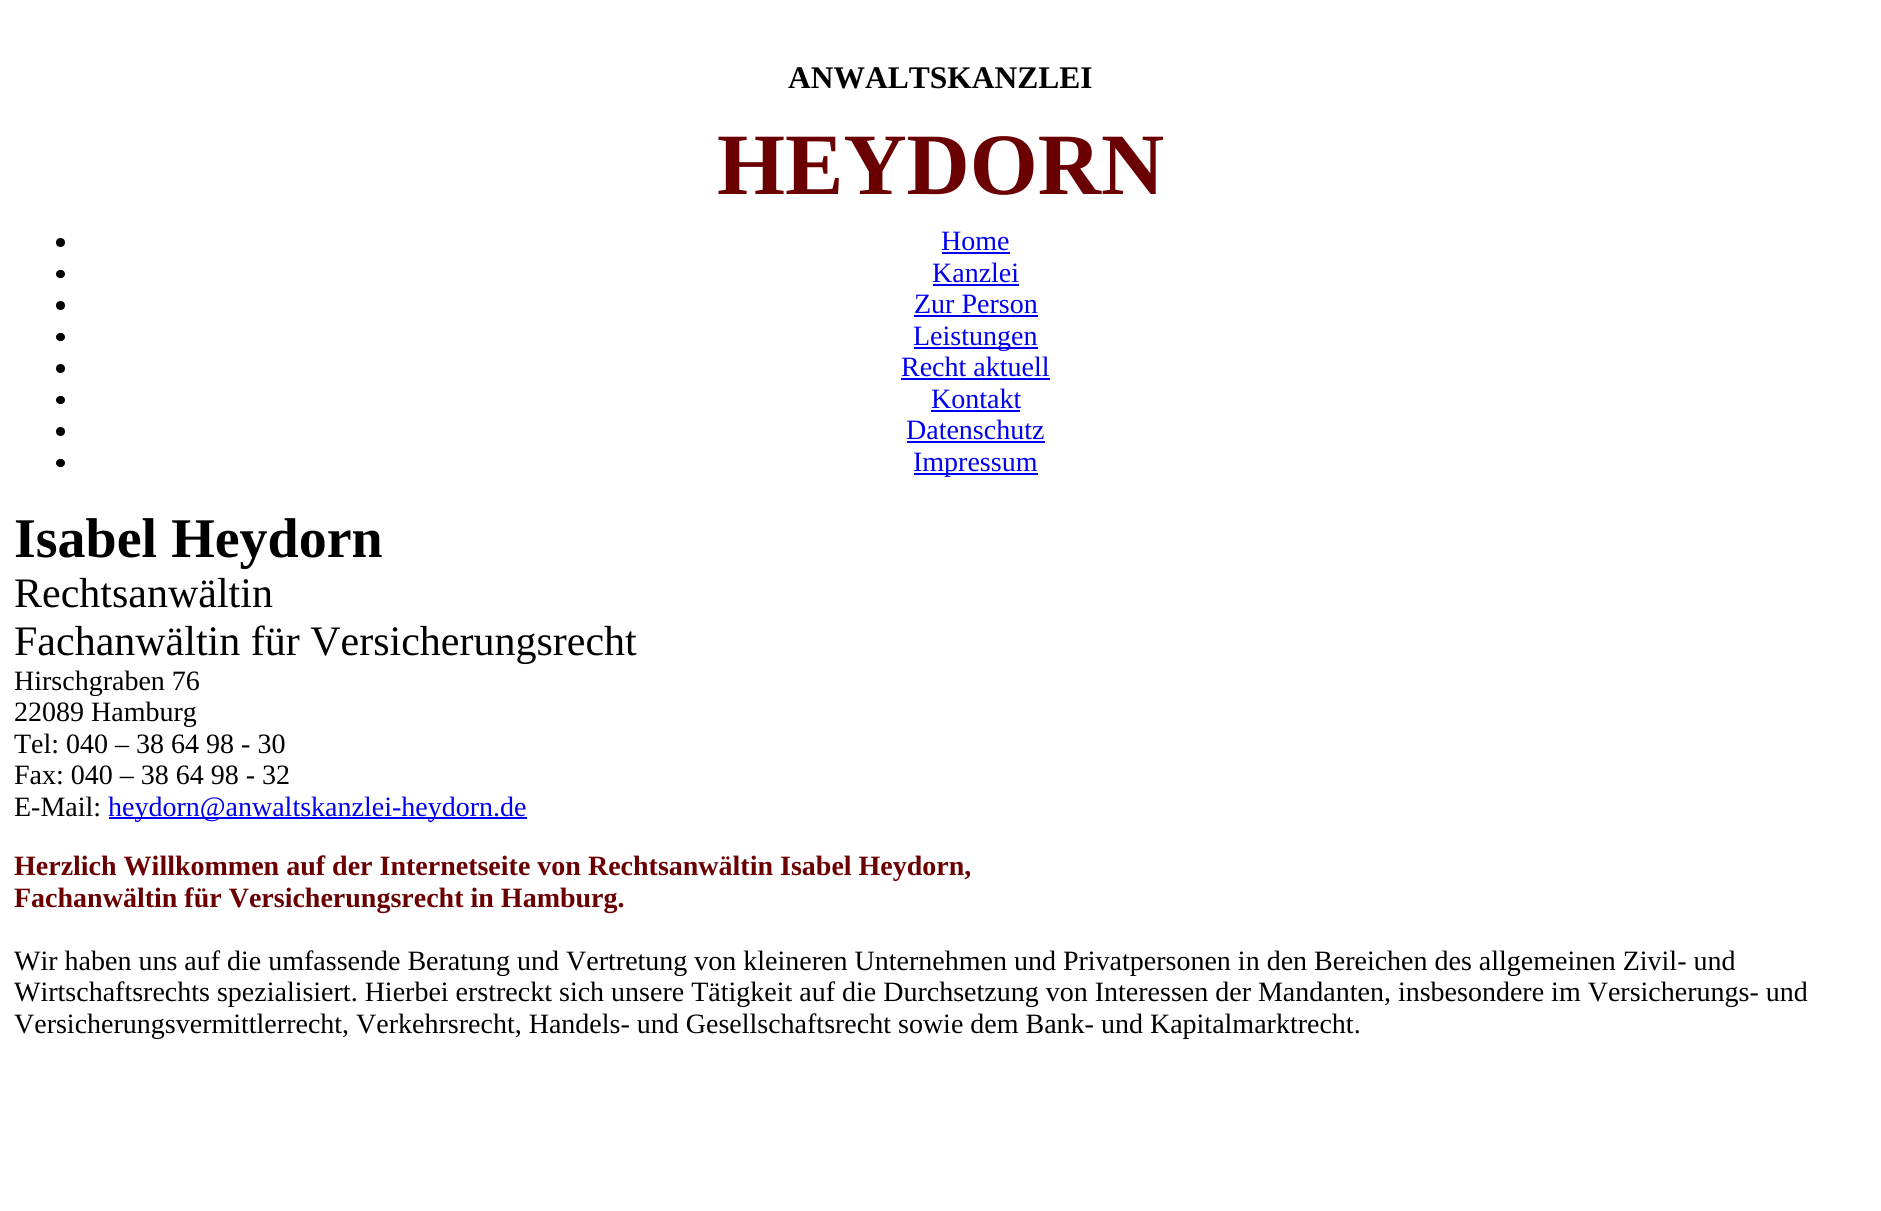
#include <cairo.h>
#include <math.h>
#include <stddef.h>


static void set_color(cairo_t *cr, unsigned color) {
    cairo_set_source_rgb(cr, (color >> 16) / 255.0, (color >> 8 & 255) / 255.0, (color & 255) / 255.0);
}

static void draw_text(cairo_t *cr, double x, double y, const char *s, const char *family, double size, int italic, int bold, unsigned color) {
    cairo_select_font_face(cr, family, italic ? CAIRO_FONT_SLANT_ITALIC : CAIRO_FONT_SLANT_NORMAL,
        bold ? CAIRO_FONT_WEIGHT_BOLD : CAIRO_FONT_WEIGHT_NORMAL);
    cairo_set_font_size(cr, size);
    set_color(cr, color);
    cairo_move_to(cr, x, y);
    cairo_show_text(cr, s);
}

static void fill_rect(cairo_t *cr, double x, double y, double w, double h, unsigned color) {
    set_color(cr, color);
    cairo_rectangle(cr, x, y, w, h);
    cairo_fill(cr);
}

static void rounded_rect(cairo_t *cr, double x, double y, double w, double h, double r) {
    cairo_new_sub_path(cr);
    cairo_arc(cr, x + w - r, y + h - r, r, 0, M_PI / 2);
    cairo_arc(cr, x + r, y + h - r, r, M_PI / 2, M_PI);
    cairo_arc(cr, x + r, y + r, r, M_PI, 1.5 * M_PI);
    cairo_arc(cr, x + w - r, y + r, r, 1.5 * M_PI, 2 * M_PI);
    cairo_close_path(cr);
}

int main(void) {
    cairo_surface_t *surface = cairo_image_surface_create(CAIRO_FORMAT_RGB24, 1881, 1211);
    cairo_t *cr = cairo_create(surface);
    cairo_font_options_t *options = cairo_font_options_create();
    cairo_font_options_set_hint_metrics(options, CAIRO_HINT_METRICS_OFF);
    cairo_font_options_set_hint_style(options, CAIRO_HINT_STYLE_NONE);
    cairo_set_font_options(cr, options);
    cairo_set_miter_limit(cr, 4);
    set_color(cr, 0xFFFFFF);
    cairo_paint(cr);
    draw_text(cr, 788, 88, "ANWALTSKANZLEI", "Liberation Serif", 31.5, 0, 1, 0x000000);
    draw_text(cr, 717, 194, "HEYDORN", "Liberation Serif", 87.5, 0, 1, 0x6B0003);
    set_color(cr, 0x000000);
    cairo_new_path(cr);
    cairo_arc(cr, 60.5, 242.5, 4.5, 0, 2 * M_PI);
    cairo_fill(cr);
    draw_text(cr, 941, 250, "Home", "Liberation Serif", 28, 0, 0, 0x0000EE);
    fill_rect(cr, 942, 252, 68, 2, 0x0000EE);
    set_color(cr, 0x000000);
    rounded_rect(cr, 56, 270, 9, 8, 4);
    cairo_fill(cr);
    draw_text(cr, 932, 282, "Kanzlei", "Liberation Serif", 28, 0, 0, 0x0000EE);
    fill_rect(cr, 933, 284, 86, 2, 0x0000EE);
    set_color(cr, 0x000000);
    cairo_new_path(cr);
    cairo_arc(cr, 60.5, 305.5, 4.5, 0, 2 * M_PI);
    cairo_fill(cr);
    draw_text(cr, 914, 313, "Zur Person", "Liberation Serif", 28, 0, 0, 0x0000EE);
    fill_rect(cr, 914, 315, 124, 2, 0x0000EE);
    set_color(cr, 0x000000);
    rounded_rect(cr, 56, 333, 9, 8, 4);
    cairo_fill(cr);
    fill_rect(cr, 914, 347, 124, 2, 0x0000EE);
    draw_text(cr, 913, 345, "Leistungen", "Liberation Serif", 28, 0, 0, 0x0000EE);
    set_color(cr, 0x000000);
    cairo_new_path(cr);
    cairo_arc(cr, 60.5, 368.5, 4.5, 0, 2 * M_PI);
    cairo_fill(cr);
    draw_text(cr, 901, 376, "Recht aktuell", "Liberation Serif", 28, 0, 0, 0x0000EE);
    fill_rect(cr, 901, 378, 149, 2, 0x0000EE);
    set_color(cr, 0x000000);
    rounded_rect(cr, 56, 396, 9, 8, 4);
    cairo_fill(cr);
    draw_text(cr, 931, 408, "Kontakt", "Liberation Serif", 28, 0, 0, 0x0000EE);
    fill_rect(cr, 931, 410, 89, 2, 0x0000EE);
    set_color(cr, 0x000000);
    cairo_new_path(cr);
    cairo_arc(cr, 60.5, 431.5, 4.5, 0, 2 * M_PI);
    cairo_fill(cr);
    draw_text(cr, 906, 439, "Datenschutz", "Liberation Serif", 28, 0, 0, 0x0000EE);
    fill_rect(cr, 907, 441, 138, 2, 0x0000EE);
    set_color(cr, 0x000000);
    rounded_rect(cr, 56, 459, 9, 8, 4);
    cairo_fill(cr);
    fill_rect(cr, 914, 473, 124, 2, 0x0000EE);
    draw_text(cr, 913, 471, "Impressum", "Liberation Serif", 28, 0, 0, 0x0000EE);
    draw_text(cr, 14, 557, "Isabel Heydorn", "Liberation Serif", 56, 0, 1, 0x000000);
    draw_text(cr, 14, 607, "Rechtsanwältin", "Liberation Serif", 42, 0, 0, 0x000000);
    draw_text(cr, 14, 655, "Fachanwältin für Versicherungsrecht", "Liberation Serif", 42, 0, 0, 0x000000);
    draw_text(cr, 14, 690, "Hirschgraben 76", "Liberation Serif", 28, 0, 0, 0x000000);
    draw_text(cr, 14, 721, "22089 Hamburg", "Liberation Serif", 28, 0, 0, 0x000000);
    draw_text(cr, 14, 753, "Tel: 040 – 38 64 98 - 30", "Liberation Serif", 28, 0, 0, 0x000000);
    draw_text(cr, 14, 784, "Fax: 040 – 38 64 98 - 32", "Liberation Serif", 28, 0, 0, 0x000000);
    draw_text(cr, 14, 816, "E-Mail:", "Liberation Serif", 28, 0, 0, 0x000000);
    fill_rect(cr, 109, 817, 418, 2, 0x0000EE);
    draw_text(cr, 108, 816, "heydorn@anwaltskanzlei-heydorn.de", "Liberation Serif", 28, 0, 0, 0x0000EE);
    draw_text(cr, 14, 875, "Herzlich Willkommen auf der Internetseite von Rechtsanwältin Isabel Heydorn,", "Liberation Serif", 28, 0, 1, 0x6B0003);
    draw_text(cr, 14, 907, "Fachanwältin für Versicherungsrecht in Hamburg.", "Liberation Serif", 28, 0, 1, 0x6B0003);
    draw_text(cr, 14, 970, "Wir haben uns auf die umfassende Beratung und Vertretung von kleineren Unternehmen und Privatpersonen in den Bereichen des allgemeinen Zivil- und", "Liberation Serif", 28, 0, 0, 0x000000);
    draw_text(cr, 14, 1001, "Wirtschaftsrechts spezialisiert. Hierbei erstreckt sich unsere Tätigkeit auf die Durchsetzung von Interessen der Mandanten, insbesondere im Versicherungs- und", "Liberation Serif", 28, 0, 0, 0x000000);
    draw_text(cr, 14, 1033, "Versicherungsvermittlerrecht, Verkehrsrecht, Handels- und Gesellschaftsrecht sowie dem Bank- und Kapitalmarktrecht.", "Liberation Serif", 28, 0, 0, 0x000000);
    cairo_surface_write_to_png(surface, "output.png");
    cairo_font_options_destroy(options);
    cairo_destroy(cr);
    cairo_surface_destroy(surface);
    return 0;
}
